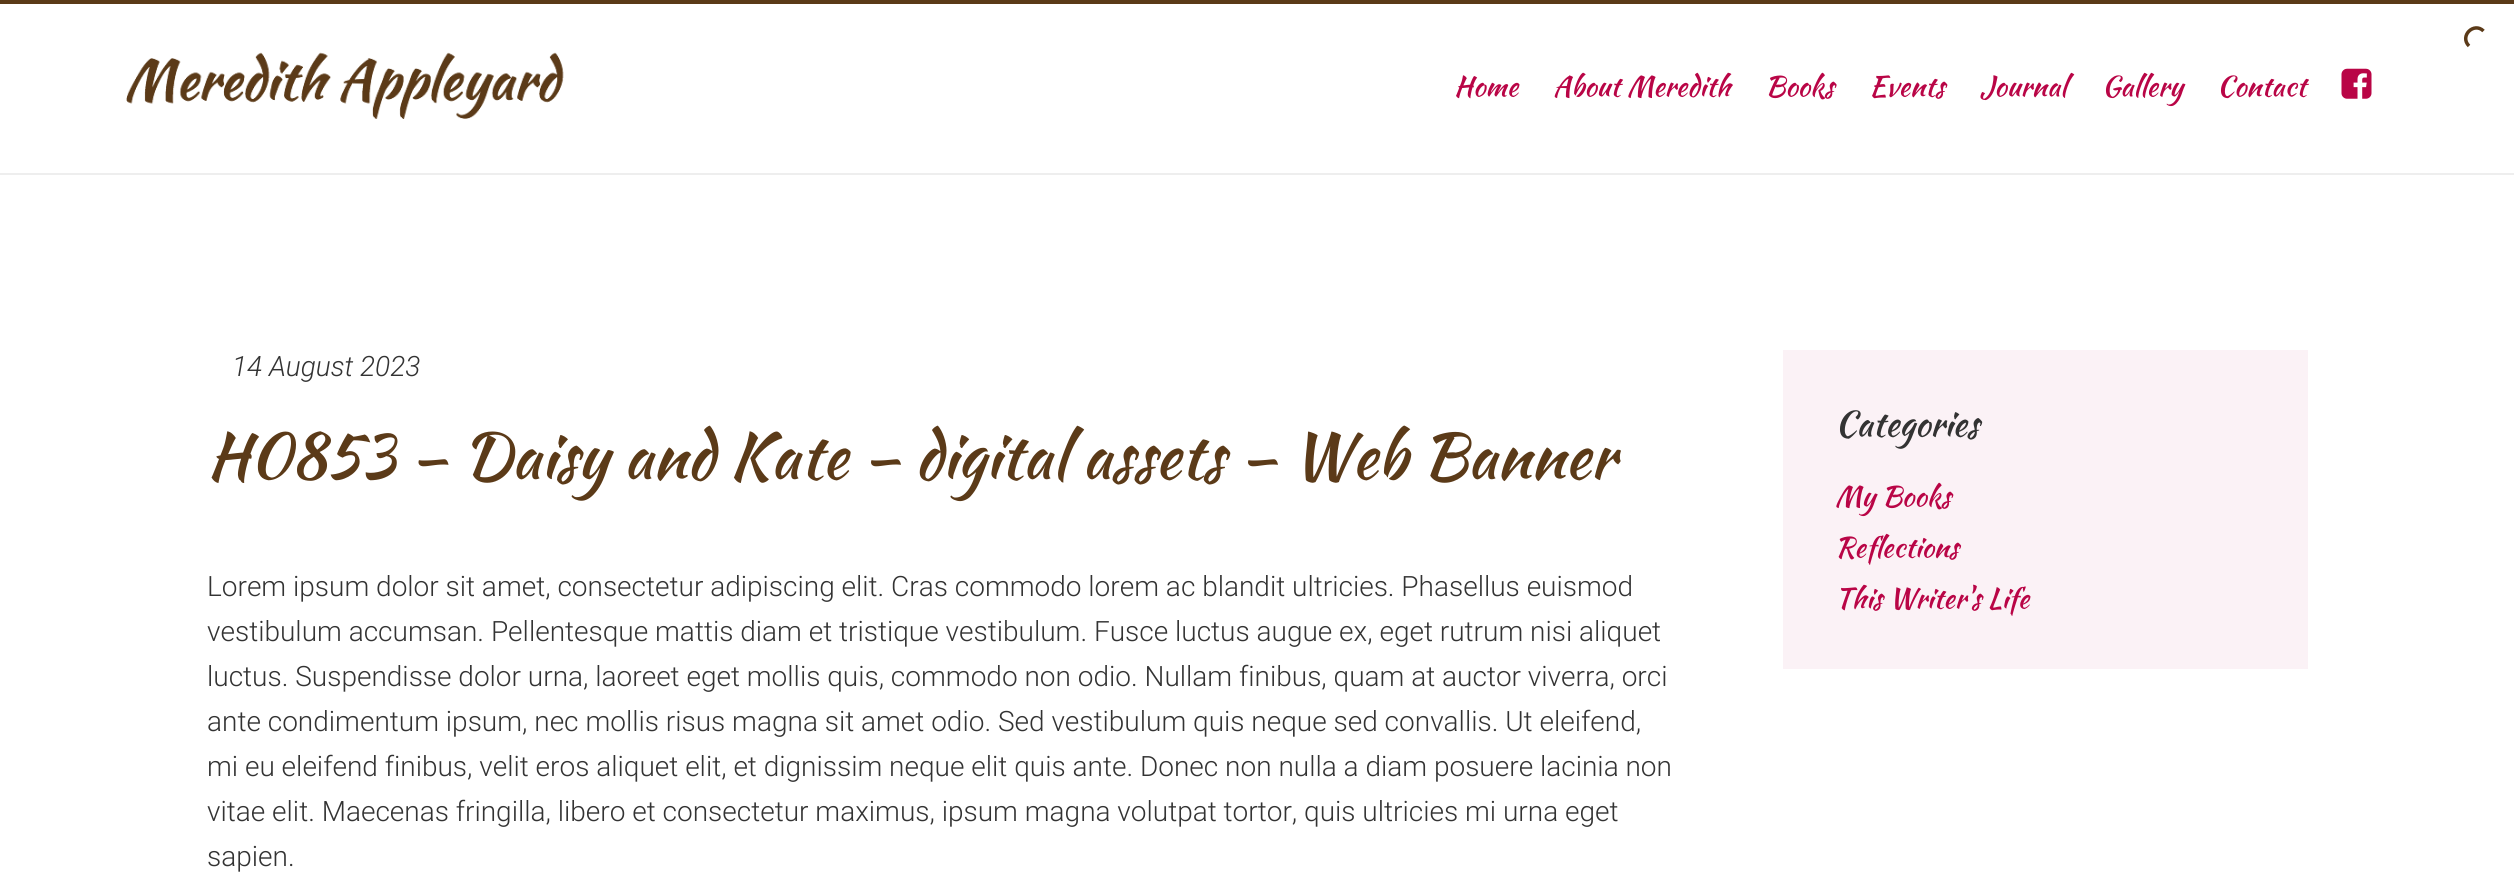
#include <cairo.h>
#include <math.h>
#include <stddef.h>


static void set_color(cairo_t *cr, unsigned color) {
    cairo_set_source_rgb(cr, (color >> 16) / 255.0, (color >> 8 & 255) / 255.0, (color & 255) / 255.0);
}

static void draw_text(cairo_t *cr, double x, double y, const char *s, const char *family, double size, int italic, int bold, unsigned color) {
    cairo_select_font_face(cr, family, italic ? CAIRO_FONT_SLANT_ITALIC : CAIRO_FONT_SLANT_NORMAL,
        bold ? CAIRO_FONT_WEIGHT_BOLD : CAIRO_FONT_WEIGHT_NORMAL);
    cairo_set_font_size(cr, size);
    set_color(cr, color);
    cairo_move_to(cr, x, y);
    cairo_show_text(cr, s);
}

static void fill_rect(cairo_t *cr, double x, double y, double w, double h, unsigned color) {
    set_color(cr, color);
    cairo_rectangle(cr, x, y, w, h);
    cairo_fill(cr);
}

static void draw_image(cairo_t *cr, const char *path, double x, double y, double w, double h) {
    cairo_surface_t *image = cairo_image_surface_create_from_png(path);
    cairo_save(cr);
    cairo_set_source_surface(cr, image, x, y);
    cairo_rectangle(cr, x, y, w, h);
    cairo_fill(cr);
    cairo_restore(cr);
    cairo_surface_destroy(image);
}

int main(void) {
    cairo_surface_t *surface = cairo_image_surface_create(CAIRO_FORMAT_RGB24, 2514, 889);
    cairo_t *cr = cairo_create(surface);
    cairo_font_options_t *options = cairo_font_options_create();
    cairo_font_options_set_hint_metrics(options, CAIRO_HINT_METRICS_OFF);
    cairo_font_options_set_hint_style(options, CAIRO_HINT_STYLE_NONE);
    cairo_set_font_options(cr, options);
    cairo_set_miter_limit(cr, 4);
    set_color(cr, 0xFFFFFF);
    cairo_paint(cr);
    fill_rect(cr, 0, 0, 2514, 4, 0x5B3A18);
    cairo_new_path(cr);
    cairo_move_to(cr, 2469, 46);
    cairo_curve_to(cr, 2459, 36, 2474, 21.5, 2483.5, 31);
    cairo_set_line_width(cr, 3.5);
    cairo_stroke(cr);
    fill_rect(cr, 0, 173, 2514, 2, 0xEEEEEE);
    draw_image(cr, "assets/img1.png", 126, 52, 438, 67);
    draw_text(cr, 1454, 96, "Home", "Kaushan Script", 28, 0, 0, 0xB90546);
    draw_text(cr, 1553, 96, "About Meredith", "Kaushan Script", 28, 0, 0, 0xB90546);
    draw_text(cr, 1765, 96, "Books", "Kaushan Script", 28, 0, 0, 0xB90546);
    draw_text(cr, 1869, 96, "Events", "Kaushan Script", 28, 0, 0, 0xB90546);
    draw_text(cr, 1980, 96, "Journal", "Kaushan Script", 28, 0, 0, 0xB90546);
    draw_text(cr, 2102, 96, "Gallery", "Kaushan Script", 28, 0, 0, 0xB90546);
    draw_text(cr, 2217, 96, "Contact", "Kaushan Script", 28, 0, 0, 0xB90546);
    draw_image(cr, "assets/img2.png", 2341, 68, 31, 31);
    draw_text(cr, 232, 376, "14 August 2023", "Roboto Light", 28, 1, 0, 0x333333);
    draw_text(cr, 207, 478, "H0853 – Daisy and Kate – digital assets – Web Banner", "Kaushan Script", 63, 0, 0, 0x5B3A18);
    draw_text(cr, 207, 596, "Lorem ipsum dolor sit amet, consectetur adipiscing elit. Cras commodo lorem ac blandit ultricies. Phasellus euismod", "Roboto Light", 28, 0, 0, 0x333333);
    draw_text(cr, 207, 641, "vestibulum accumsan. Pellentesque mattis diam et tristique vestibulum. Fusce luctus augue ex, eget rutrum nisi aliquet", "Roboto Light", 28, 0, 0, 0x333333);
    draw_text(cr, 207, 686, "luctus. Suspendisse dolor urna, laoreet eget mollis quis, commodo non odio. Nullam finibus, quam at auctor viverra, orci", "Roboto Light", 28, 0, 0, 0x333333);
    draw_text(cr, 207, 731, "ante condimentum ipsum, nec mollis risus magna sit amet odio. Sed vestibulum quis neque sed convallis. Ut eleifend,", "Roboto Light", 28, 0, 0, 0x333333);
    draw_text(cr, 207, 776, "mi eu eleifend finibus, velit eros aliquet elit, et dignissim neque elit quis ante. Donec non nulla a diam posuere lacinia non", "Roboto Light", 28, 0, 0, 0x333333);
    draw_text(cr, 207, 821, "vitae elit. Maecenas fringilla, libero et consectetur maximus, ipsum magna volutpat tortor, quis ultricies mi urna eget", "Roboto Light", 28, 0, 0, 0x333333);
    draw_text(cr, 207, 866, "sapien.", "Roboto Light", 28, 0, 0, 0x333333);
    fill_rect(cr, 1783, 350, 525, 319, 0xFBF2F6);
    draw_text(cr, 1835, 436, "Categories", "Kaushan Script", 35, 0, 0, 0x333333);
    draw_text(cr, 1835, 506, "My Books", "Kaushan Script", 28, 0, 0, 0xB90546);
    draw_text(cr, 1835, 557, "Reflections", "Kaushan Script", 28, 0, 0, 0xB90546);
    draw_text(cr, 1835, 608, "This Writer's Life", "Kaushan Script", 28, 0, 0, 0xB90546);
    cairo_surface_write_to_png(surface, "output.png");
    cairo_font_options_destroy(options);
    cairo_destroy(cr);
    cairo_surface_destroy(surface);
    return 0;
}
